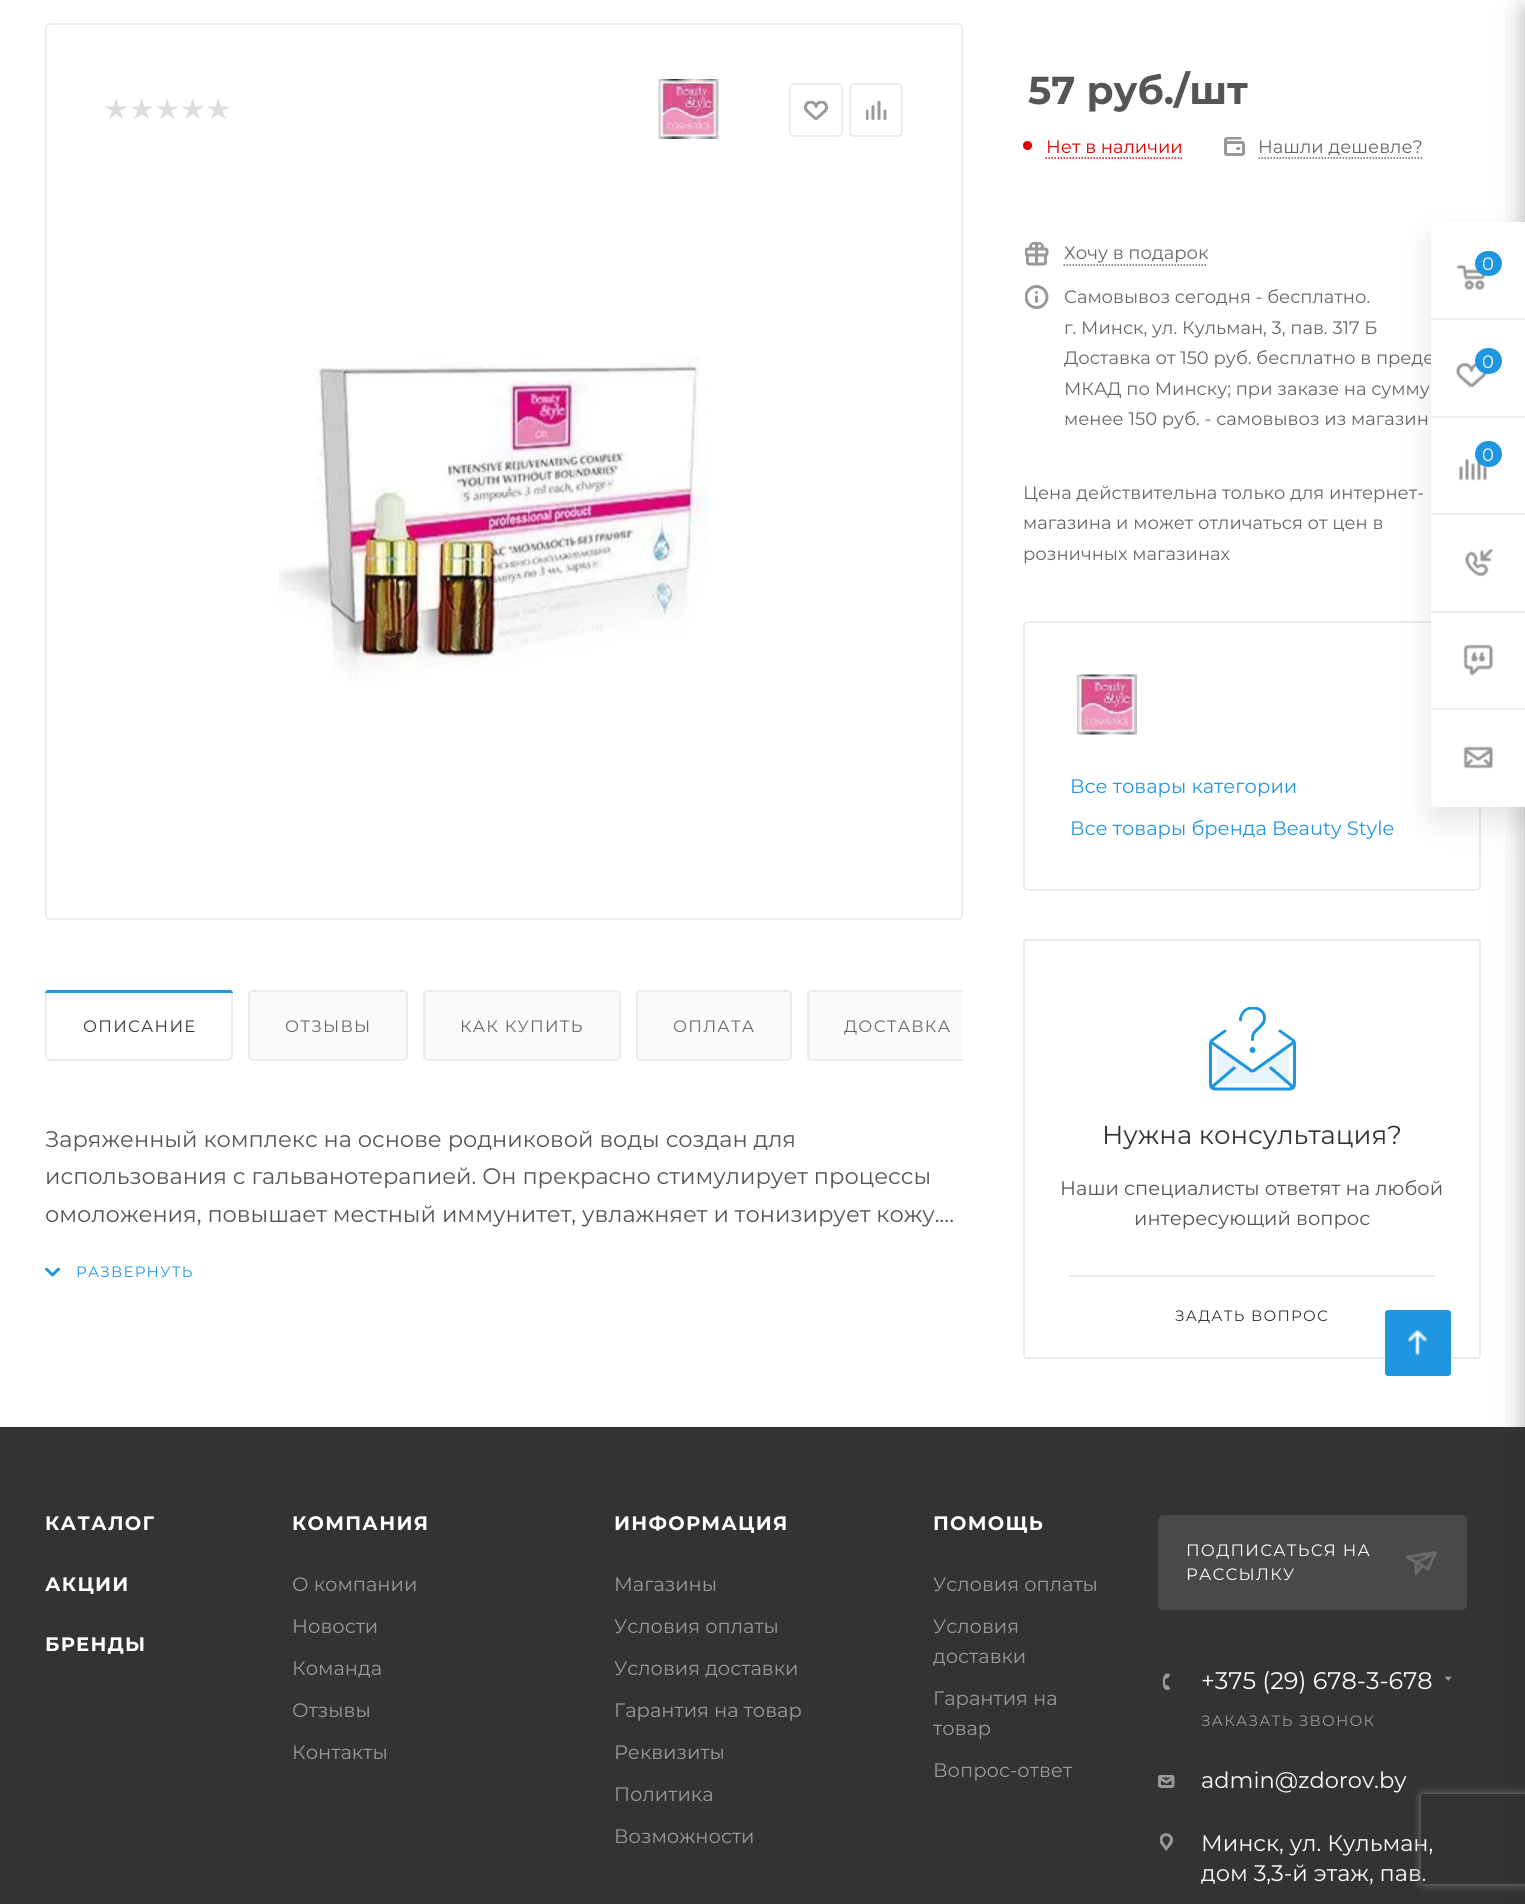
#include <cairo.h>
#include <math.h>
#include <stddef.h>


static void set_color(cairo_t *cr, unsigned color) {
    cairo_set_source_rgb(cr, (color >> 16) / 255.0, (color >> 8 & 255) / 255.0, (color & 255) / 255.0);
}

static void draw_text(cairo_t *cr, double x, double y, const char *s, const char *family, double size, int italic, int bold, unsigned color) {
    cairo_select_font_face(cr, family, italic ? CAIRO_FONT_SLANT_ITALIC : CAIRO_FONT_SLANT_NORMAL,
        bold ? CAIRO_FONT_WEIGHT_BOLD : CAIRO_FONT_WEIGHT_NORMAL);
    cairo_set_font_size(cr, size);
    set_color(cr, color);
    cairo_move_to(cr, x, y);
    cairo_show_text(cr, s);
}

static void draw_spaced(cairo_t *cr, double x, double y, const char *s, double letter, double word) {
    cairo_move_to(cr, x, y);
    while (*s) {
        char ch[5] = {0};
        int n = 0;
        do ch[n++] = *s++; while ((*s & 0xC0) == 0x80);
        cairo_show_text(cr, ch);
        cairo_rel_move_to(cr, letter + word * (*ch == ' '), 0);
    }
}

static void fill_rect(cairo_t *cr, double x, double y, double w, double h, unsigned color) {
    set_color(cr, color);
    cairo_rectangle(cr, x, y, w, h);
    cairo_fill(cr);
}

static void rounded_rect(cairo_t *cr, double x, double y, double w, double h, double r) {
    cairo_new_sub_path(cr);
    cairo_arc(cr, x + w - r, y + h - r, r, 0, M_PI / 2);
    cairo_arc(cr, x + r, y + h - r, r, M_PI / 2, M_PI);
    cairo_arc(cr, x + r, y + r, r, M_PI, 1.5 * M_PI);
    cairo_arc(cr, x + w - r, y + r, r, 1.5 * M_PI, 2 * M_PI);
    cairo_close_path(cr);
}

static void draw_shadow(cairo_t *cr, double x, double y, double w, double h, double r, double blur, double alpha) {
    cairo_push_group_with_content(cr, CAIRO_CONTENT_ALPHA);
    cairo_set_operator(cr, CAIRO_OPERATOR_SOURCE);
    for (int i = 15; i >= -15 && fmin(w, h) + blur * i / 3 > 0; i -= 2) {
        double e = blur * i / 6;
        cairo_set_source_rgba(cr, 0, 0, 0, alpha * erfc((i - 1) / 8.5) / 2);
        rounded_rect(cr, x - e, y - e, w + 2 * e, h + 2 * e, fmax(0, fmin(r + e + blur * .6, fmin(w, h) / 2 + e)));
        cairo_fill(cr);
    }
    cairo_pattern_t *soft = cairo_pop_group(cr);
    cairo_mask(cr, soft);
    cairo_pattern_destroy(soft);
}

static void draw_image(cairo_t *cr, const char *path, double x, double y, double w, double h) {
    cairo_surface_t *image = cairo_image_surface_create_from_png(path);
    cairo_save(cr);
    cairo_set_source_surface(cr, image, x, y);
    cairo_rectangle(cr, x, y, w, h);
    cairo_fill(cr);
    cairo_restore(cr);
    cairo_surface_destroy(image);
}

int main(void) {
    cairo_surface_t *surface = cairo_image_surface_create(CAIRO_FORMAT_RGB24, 1525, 1904);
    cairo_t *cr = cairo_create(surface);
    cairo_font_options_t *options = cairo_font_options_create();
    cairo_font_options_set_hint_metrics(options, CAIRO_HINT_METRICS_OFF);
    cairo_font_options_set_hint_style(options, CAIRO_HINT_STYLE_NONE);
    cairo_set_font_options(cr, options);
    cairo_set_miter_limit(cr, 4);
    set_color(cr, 0xFFFFFF);
    cairo_paint(cr);
    rounded_rect(cr, 46, 24, 916, 895, 4);
    set_color(cr, 0xECECEC);
    cairo_stroke(cr);
    draw_image(cr, "assets/img1.png", 106, 99, 21, 20);
    draw_image(cr, "assets/img2.png", 131, 99, 21, 20);
    draw_image(cr, "assets/img1.png", 157, 99, 21, 20);
    draw_image(cr, "assets/img2.png", 182, 99, 21, 20);
    draw_image(cr, "assets/img1.png", 208, 99, 21, 20);
    draw_image(cr, "assets/img3.png", 658, 79, 61, 60);
    rounded_rect(cr, 790, 84, 52, 52, 4);
    cairo_stroke(cr);
    draw_image(cr, "assets/img4.png", 804, 101, 24, 19);
    rounded_rect(cr, 850, 84, 52, 52, 4);
    cairo_stroke(cr);
    draw_image(cr, "assets/img5.png", 866, 101, 21, 19);
    draw_image(cr, "assets/img6.png", 279, 357, 429, 324);
    set_color(cr, 0xFAFAFA);
    rounded_rect(cr, 46, 991, 186, 69, 4);
    cairo_fill_preserve(cr);
    set_color(cr, 0xECECEC);
    cairo_stroke(cr);
    set_color(cr, 0xFFFFFF);
    rounded_rect(cr, 47, 992, 184, 67, 5);
    cairo_fill(cr);
    set_color(cr, 0x2196E0);
    cairo_new_path(cr);
    cairo_move_to(cr, 48, 990);
    cairo_line_to(cr, 230, 990);
    cairo_curve_to(cr, 231.5, 990, 233, 991.5, 233, 993);
    cairo_line_to(cr, 45, 993);
    cairo_curve_to(cr, 45, 991.5, 46.5, 990, 48, 990);
    cairo_close_path(cr);
    cairo_fill(cr);
    cairo_select_font_face(cr, "Montserrat", CAIRO_FONT_SLANT_NORMAL, CAIRO_FONT_WEIGHT_NORMAL);
    cairo_set_font_size(cr, 16.5);
    set_color(cr, 0x333333);
    draw_spaced(cr, 83, 1032, "ОПИСАНИЕ", 1.25, 0);
    set_color(cr, 0xFAFAFA);
    rounded_rect(cr, 249, 991, 158, 69, 4);
    cairo_fill_preserve(cr);
    set_color(cr, 0xECECEC);
    cairo_stroke(cr);
    set_color(cr, 0x666666);
    draw_spaced(cr, 285, 1032, "ОТЗЫВЫ", 1.25, 0);
    set_color(cr, 0xFAFAFA);
    rounded_rect(cr, 424, 991, 196, 69, 4);
    cairo_fill_preserve(cr);
    set_color(cr, 0xECECEC);
    cairo_stroke(cr);
    set_color(cr, 0x666666);
    draw_spaced(cr, 460, 1032, "КАК КУПИТЬ", 1.25, 0);
    set_color(cr, 0xFAFAFA);
    rounded_rect(cr, 637, 991, 154, 69, 4);
    cairo_fill_preserve(cr);
    set_color(cr, 0xECECEC);
    cairo_stroke(cr);
    set_color(cr, 0x666666);
    draw_spaced(cr, 673, 1032, "ОПЛАТА", 1.25, 0);
    set_color(cr, 0xFAFAFA);
    cairo_new_path(cr);
    cairo_move_to(cr, 812, 990);
    cairo_line_to(cr, 963, 990);
    cairo_line_to(cr, 963, 1061);
    cairo_line_to(cr, 812, 1061);
    cairo_curve_to(cr, 809, 1061, 807, 1059, 807, 1056);
    cairo_line_to(cr, 807, 995);
    cairo_curve_to(cr, 807, 992, 809, 990, 812, 990);
    cairo_close_path(cr);
    cairo_fill(cr);
    cairo_save(cr);
    cairo_rectangle(cr, 45, 990, 918, 71);
    cairo_clip(cr);
    rounded_rect(cr, 808, 991, 180, 69, 4);
    set_color(cr, 0xECECEC);
    cairo_stroke(cr);
    cairo_restore(cr);
    set_color(cr, 0x666666);
    draw_spaced(cr, 844, 1032, "ДОСТАВКА", 1.25, 0);
    draw_text(cr, 45, 1147, "Заряженный комплекс на основе родниковой воды создан для", "Montserrat", 22.5, 0, 0, 0x555555);
    draw_text(cr, 45, 1184, "использования с гальванотерапией. Он прекрасно стимулирует процессы", "Montserrat", 22.5, 0, 0, 0x555555);
    draw_text(cr, 45, 1222, "омоложения, повышает местный иммунитет, увлажняет и тонизирует кожу.…", "Montserrat", 22.5, 0, 0, 0x555555);
    draw_image(cr, "assets/img7.png", 45, 1268, 15, 9);
    cairo_set_font_size(cr, 15);
    set_color(cr, 0x2196E0);
    draw_spaced(cr, 76, 1277, "РАЗВЕРНУТЬ", 1.25, 0);
    draw_text(cr, 1028, 104, "57 руб./шт", "Montserrat", 39, 0, 1, 0x555555);
    set_color(cr, 0xE10000);
    cairo_new_path(cr);
    cairo_arc(cr, 1027.5, 145.5, 4.5, 0, 2 * M_PI);
    cairo_fill(cr);
    draw_text(cr, 1046, 153, "Нет в наличии", "Montserrat", 18, 0, 0, 0xE10000);
    cairo_new_path(cr);
    cairo_move_to(cr, 1045.5, 158);
    cairo_line_to(cr, 1182, 158);
    cairo_set_line_width(cr, 1.5);
    cairo_set_dash(cr, (double[]){1.5, 1.5}, 2, 0);
    cairo_stroke(cr);
    draw_image(cr, "assets/img8.png", 1224, 137, 21, 19);
    draw_text(cr, 1258, 153, "Нашли дешевле?", "Montserrat", 18, 0, 0, 0x666666);
    cairo_new_path(cr);
    cairo_move_to(cr, 1258.5, 158);
    cairo_line_to(cr, 1422, 158);
    cairo_stroke(cr);
    draw_image(cr, "assets/img9.png", 1025, 242, 24, 24);
    draw_text(cr, 1064, 259, "Хочу в подарок", "Montserrat", 18, 0, 0, 0x666666);
    cairo_new_path(cr);
    cairo_move_to(cr, 1063.5, 265);
    cairo_line_to(cr, 1207.5, 265);
    cairo_stroke(cr);
    draw_image(cr, "assets/img10.png", 1025, 285, 24, 24);
    draw_text(cr, 1064, 303, "Самовывоз сегодня - бесплатно.", "Montserrat", 18, 0, 0, 0x666666);
    draw_text(cr, 1064, 334, "г. Минск, ул. Кульман, 3, пав. 317 Б", "Montserrat", 18, 0, 0, 0x666666);
    draw_text(cr, 1064, 364, "Доставка от 150 руб. бесплатно в преде", "Montserrat", 18, 0, 0, 0x666666);
    draw_text(cr, 1064, 395, "МКАД по Минску; при заказе на сумму", "Montserrat", 18, 0, 0, 0x666666);
    draw_text(cr, 1064, 425, "менее 150 руб. - самовывоз из магазин", "Montserrat", 18, 0, 0, 0x666666);
    draw_text(cr, 1023, 499, "Цена действительна только для интернет-", "Montserrat", 18, 0, 0, 0x666666);
    draw_text(cr, 1023, 529, "магазина и может отличаться от цен в", "Montserrat", 18, 0, 0, 0x666666);
    draw_text(cr, 1023, 560, "розничных магазинах", "Montserrat", 18, 0, 0, 0x666666);
    rounded_rect(cr, 1024, 622, 456, 268, 4);
    set_color(cr, 0xECECEC);
    cairo_set_line_width(cr, 2);
    cairo_set_dash(cr, NULL, 0, 0);
    cairo_stroke(cr);
    draw_image(cr, "assets/img11.png", 1077, 674, 60, 61);
    draw_text(cr, 1070, 793, "Все товары категории", "Montserrat", 19.5, 0, 0, 0x2196E0);
    draw_text(cr, 1070, 835, "Все товары бренда Beauty Style", "Montserrat", 19.5, 0, 0, 0x2196E0);
    rounded_rect(cr, 1024, 940, 456, 418, 2);
    set_color(cr, 0xECECEC);
    cairo_stroke(cr);
    draw_image(cr, "assets/img12.png", 1209, 1007, 87, 84);
    draw_text(cr, 1102, 1144, "Нужна консультация?", "Montserrat", 26, 0, 0, 0x333333);
    draw_text(cr, 1060, 1195, "Наши специалисты ответят на любой", "Montserrat", 19.5, 0, 0, 0x555555);
    draw_text(cr, 1134, 1225, "интересующий вопрос", "Montserrat", 19.5, 0, 0, 0x555555);
    fill_rect(cr, 1068, 1275, 368, 2, 0xECECEC);
    cairo_set_font_size(cr, 15);
    set_color(cr, 0x333333);
    draw_spaced(cr, 1175, 1321, "ЗАДАТЬ ВОПРОС", 1.25, 0);
    fill_rect(cr, 0, 1427, 1525, 477, 0x333333);
    set_color(cr, 0x2C2C2C);
    draw_shadow(cr, 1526, 9, 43, 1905, 3, 13.5, 0.4);
    set_color(cr, 0x000000);
    draw_shadow(cr, 1431, 237, 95, 585, 6, 15, 0.1);
    set_color(cr, 0xFFFFFF);
    cairo_new_path(cr);
    cairo_move_to(cr, 1437, 222);
    cairo_line_to(cr, 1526, 222);
    cairo_line_to(cr, 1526, 807);
    cairo_line_to(cr, 1437, 807);
    cairo_curve_to(cr, 1433.5, 807, 1431, 804.5, 1431, 801);
    cairo_line_to(cr, 1431, 228);
    cairo_curve_to(cr, 1431, 224.5, 1433.5, 222, 1437, 222);
    cairo_close_path(cr);
    cairo_fill(cr);
    fill_rect(cr, 1431, 318, 94, 2, 0xECECEC);
    draw_image(cr, "assets/img13.png", 1456, 265, 30, 25);
    set_color(cr, 0x2196E0);
    rounded_rect(cr, 1475, 251, 27, 25, 12.5);
    cairo_fill(cr);
    draw_text(cr, 1482, 270, "0", "Montserrat", 18, 0, 0, 0xFFFFFF);
    fill_rect(cr, 1431, 416, 94, 2, 0xECECEC);
    draw_image(cr, "assets/img14.png", 1456, 362, 31, 26);
    set_color(cr, 0x2196E0);
    rounded_rect(cr, 1475, 348, 27, 26, 13);
    cairo_fill(cr);
    draw_text(cr, 1482, 368, "0", "Montserrat", 18, 0, 0, 0xFFFFFF);
    fill_rect(cr, 1431, 513, 94, 2, 0xECECEC);
    draw_image(cr, "assets/img15.png", 1459, 458, 28, 23);
    set_color(cr, 0x2196E0);
    rounded_rect(cr, 1475, 441, 27, 26, 13);
    cairo_fill(cr);
    draw_text(cr, 1482, 461, "0", "Montserrat", 18, 0, 0, 0xFFFFFF);
    fill_rect(cr, 1431, 611, 94, 2, 0xECECEC);
    draw_image(cr, "assets/img16.png", 1465, 548, 28, 29);
    fill_rect(cr, 1431, 708, 94, 2, 0xECECEC);
    draw_image(cr, "assets/img17.png", 1463, 644, 30, 32);
    draw_image(cr, "assets/img18.png", 1463, 746, 30, 23);
    set_color(cr, 0x2196E0);
    rounded_rect(cr, 1385, 1310, 66, 66, 3);
    cairo_fill(cr);
    draw_image(cr, "assets/img19.png", 1408, 1330, 19, 26);
    cairo_select_font_face(cr, "Montserrat", CAIRO_FONT_SLANT_NORMAL, CAIRO_FONT_WEIGHT_BOLD);
    cairo_set_font_size(cr, 19.5);
    set_color(cr, 0xFFFFFF);
    draw_spaced(cr, 45, 1530, "КАТАЛОГ", 1.25, 0);
    draw_spaced(cr, 45, 1591, "АКЦИИ", 1.25, 0);
    draw_spaced(cr, 45, 1651, "БРЕНДЫ", 1.25, 0);
    draw_spaced(cr, 292, 1530, "КОМПАНИЯ", 1.25, 0);
    draw_text(cr, 292, 1591, "О компании", "Montserrat", 19.5, 0, 0, 0x999999);
    draw_text(cr, 292, 1633, "Новости", "Montserrat", 19.5, 0, 0, 0x999999);
    draw_text(cr, 292, 1675, "Команда", "Montserrat", 19.5, 0, 0, 0x999999);
    draw_text(cr, 292, 1717, "Отзывы", "Montserrat", 19.5, 0, 0, 0x999999);
    draw_text(cr, 292, 1759, "Контакты", "Montserrat", 19.5, 0, 0, 0x999999);
    cairo_select_font_face(cr, "Montserrat", CAIRO_FONT_SLANT_NORMAL, CAIRO_FONT_WEIGHT_BOLD);
    set_color(cr, 0xFFFFFF);
    draw_spaced(cr, 614, 1530, "ИНФОРМАЦИЯ", 1.25, 0);
    draw_text(cr, 614, 1591, "Магазины", "Montserrat", 19.5, 0, 0, 0x999999);
    draw_text(cr, 614, 1633, "Условия оплаты", "Montserrat", 19.5, 0, 0, 0x999999);
    draw_text(cr, 614, 1675, "Условия доставки", "Montserrat", 19.5, 0, 0, 0x999999);
    draw_text(cr, 614, 1717, "Гарантия на товар", "Montserrat", 19.5, 0, 0, 0x999999);
    draw_text(cr, 614, 1759, "Реквизиты", "Montserrat", 19.5, 0, 0, 0x999999);
    draw_text(cr, 614, 1801, "Политика", "Montserrat", 19.5, 0, 0, 0x999999);
    draw_text(cr, 614, 1843, "Возможности", "Montserrat", 19.5, 0, 0, 0x999999);
    cairo_select_font_face(cr, "Montserrat", CAIRO_FONT_SLANT_NORMAL, CAIRO_FONT_WEIGHT_BOLD);
    set_color(cr, 0xFFFFFF);
    draw_spaced(cr, 933, 1530, "ПОМОЩЬ", 1.25, 0);
    draw_text(cr, 933, 1591, "Условия оплаты", "Montserrat", 19.5, 0, 0, 0x999999);
    draw_text(cr, 933, 1633, "Условия", "Montserrat", 19.5, 0, 0, 0x999999);
    draw_text(cr, 933, 1663, "доставки", "Montserrat", 19.5, 0, 0, 0x999999);
    draw_text(cr, 933, 1705, "Гарантия на", "Montserrat", 19.5, 0, 0, 0x999999);
    draw_text(cr, 933, 1735, "товар", "Montserrat", 19.5, 0, 0, 0x999999);
    draw_text(cr, 933, 1777, "Вопрос-ответ", "Montserrat", 19.5, 0, 0, 0x999999);
    set_color(cr, 0x494949);
    rounded_rect(cr, 1159, 1516, 307, 93, 4);
    cairo_fill_preserve(cr);
    cairo_stroke(cr);
    cairo_set_font_size(cr, 16.5);
    set_color(cr, 0xFFFFFF);
    draw_spaced(cr, 1186, 1556, "ПОДПИСАТЬСЯ НА", 1.25, 0);
    draw_image(cr, "assets/img20.png", 1406, 1551, 31, 24);
    draw_spaced(cr, 1186, 1580, "РАССЫЛКУ", 1.25, 0);
    draw_image(cr, "assets/img21.png", 1162, 1673, 8, 17);
    draw_text(cr, 1201, 1689, "+375 (29) 678-3-678", "Montserrat", 24, 0, 0, 0xFFFFFF);
    draw_image(cr, "assets/img22.png", 1445, 1676, 7, 5);
    cairo_set_font_size(cr, 15);
    set_color(cr, 0x999999);
    draw_spaced(cr, 1201, 1726, "ЗАКАЗАТЬ ЗВОНОК", 1.25, 0);
    draw_image(cr, "assets/img23.png", 1158, 1775, 17, 13);
    draw_text(cr, 1201, 1788, "admin@zdorov.by", "Montserrat", 22.5, 0, 0, 0xFFFFFF);
    draw_image(cr, "assets/img24.png", 1160, 1833, 13, 18);
    draw_text(cr, 1201, 1851, "Минск, ул. Кульман,", "Montserrat", 22.5, 0, 0, 0xFFFFFF);
    draw_text(cr, 1201, 1881, "дом 3,3-й этаж, пав.", "Montserrat", 22.5, 0, 0, 0xFFFFFF);
    cairo_save(cr);
    cairo_set_fill_rule(cr, CAIRO_FILL_RULE_EVEN_ODD);
    cairo_new_path(cr);
    cairo_move_to(cr, 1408, 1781);
    cairo_line_to(cr, 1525, 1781);
    cairo_line_to(cr, 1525, 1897);
    cairo_line_to(cr, 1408, 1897);
    cairo_close_path(cr);
    cairo_move_to(cr, 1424, 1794);
    cairo_line_to(cr, 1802, 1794);
    cairo_curve_to(cr, 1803.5, 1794, 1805, 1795.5, 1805, 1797);
    cairo_line_to(cr, 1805, 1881);
    cairo_curve_to(cr, 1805, 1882.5, 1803.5, 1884, 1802, 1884);
    cairo_line_to(cr, 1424, 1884);
    cairo_curve_to(cr, 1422.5, 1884, 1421, 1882.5, 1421, 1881);
    cairo_line_to(cr, 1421, 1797);
    cairo_curve_to(cr, 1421, 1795.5, 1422.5, 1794, 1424, 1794);
    cairo_close_path(cr);
    cairo_clip(cr);
    set_color(cr, 0x808080);
    draw_shadow(cr, 1421, 1794, 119, 90, 3, 4, 1);
    cairo_restore(cr);
    cairo_surface_write_to_png(surface, "output.png");
    cairo_font_options_destroy(options);
    cairo_destroy(cr);
    cairo_surface_destroy(surface);
    return 0;
}
